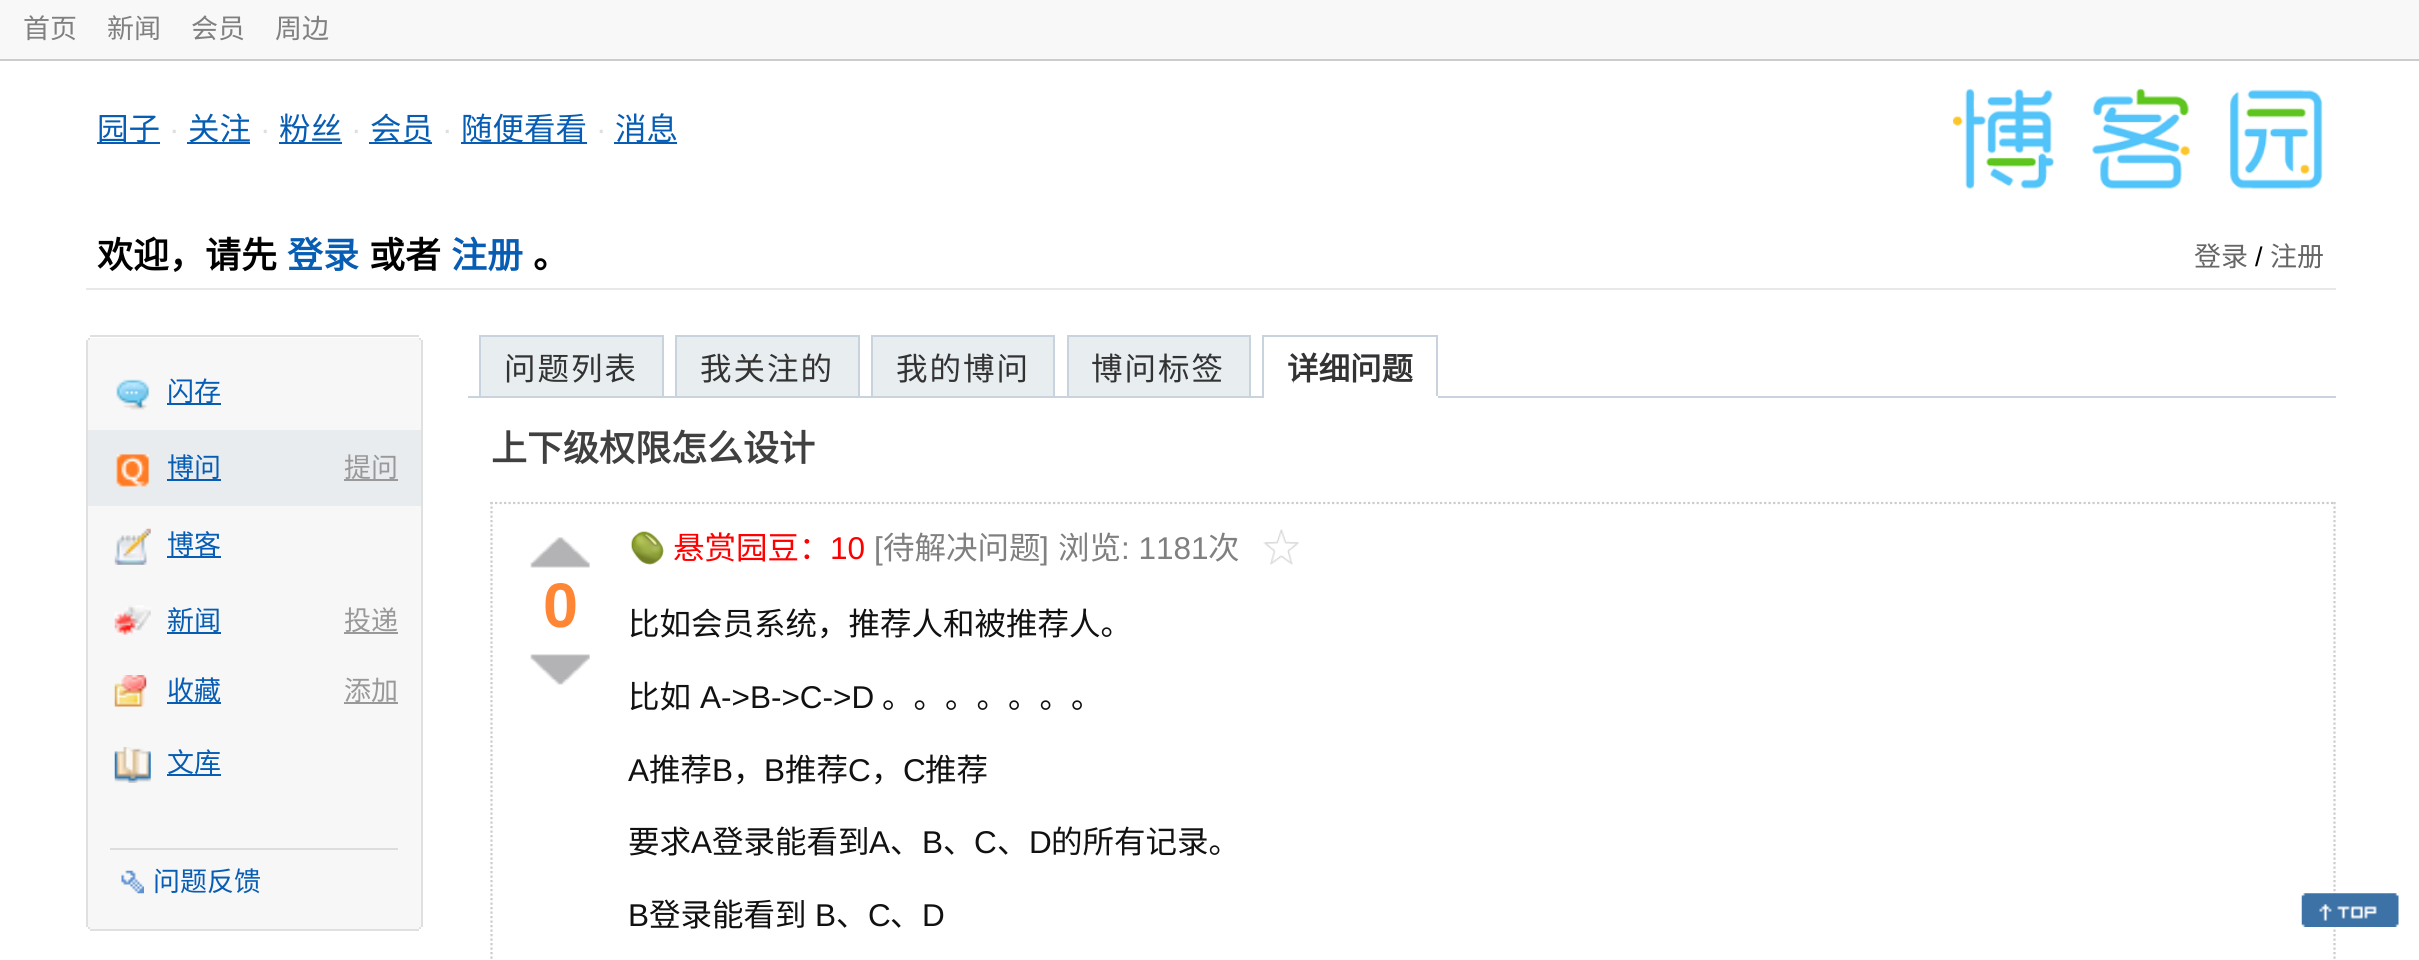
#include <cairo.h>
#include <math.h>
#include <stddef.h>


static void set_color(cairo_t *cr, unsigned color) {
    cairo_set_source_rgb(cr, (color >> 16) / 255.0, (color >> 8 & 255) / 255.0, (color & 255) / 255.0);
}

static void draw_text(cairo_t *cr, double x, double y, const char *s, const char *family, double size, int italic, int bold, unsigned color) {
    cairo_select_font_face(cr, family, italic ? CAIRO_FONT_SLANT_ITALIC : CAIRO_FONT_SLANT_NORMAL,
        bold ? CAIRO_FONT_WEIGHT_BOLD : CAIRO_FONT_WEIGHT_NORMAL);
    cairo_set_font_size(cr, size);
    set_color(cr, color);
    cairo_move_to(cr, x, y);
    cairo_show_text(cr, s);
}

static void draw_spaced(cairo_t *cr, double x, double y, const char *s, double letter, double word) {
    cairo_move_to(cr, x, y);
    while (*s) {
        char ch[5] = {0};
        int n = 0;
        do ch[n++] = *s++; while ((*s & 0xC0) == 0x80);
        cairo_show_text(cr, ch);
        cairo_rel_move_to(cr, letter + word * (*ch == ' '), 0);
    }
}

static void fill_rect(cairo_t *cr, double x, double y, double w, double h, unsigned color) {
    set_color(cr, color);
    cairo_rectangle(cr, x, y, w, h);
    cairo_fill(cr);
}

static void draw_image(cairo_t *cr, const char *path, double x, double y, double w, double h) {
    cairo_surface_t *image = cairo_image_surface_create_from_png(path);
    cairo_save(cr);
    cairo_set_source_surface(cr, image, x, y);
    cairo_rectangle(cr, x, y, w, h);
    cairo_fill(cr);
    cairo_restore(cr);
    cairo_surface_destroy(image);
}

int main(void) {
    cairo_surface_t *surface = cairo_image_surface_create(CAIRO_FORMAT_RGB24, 2419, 960);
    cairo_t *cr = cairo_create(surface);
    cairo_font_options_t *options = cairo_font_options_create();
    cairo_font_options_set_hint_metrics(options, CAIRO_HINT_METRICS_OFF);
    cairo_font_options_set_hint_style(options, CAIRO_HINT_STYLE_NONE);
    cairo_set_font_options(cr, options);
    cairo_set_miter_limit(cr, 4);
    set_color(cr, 0xFFFFFF);
    cairo_paint(cr);
    fill_rect(cr, 0, 0, 2419, 59, 0xF8F8F8);
    fill_rect(cr, 0, 59, 2419, 2, 0xCCCCCC);
    draw_text(cr, 23, 38, "首页", "Noto Sans CJK SC", 27, 0, 0, 0x808080);
    draw_text(cr, 107, 38, "新闻", "Noto Sans CJK SC", 27, 0, 0, 0x808080);
    draw_text(cr, 191, 38, "会员", "Noto Sans CJK SC", 27, 0, 0, 0x808080);
    draw_text(cr, 275, 38, "周边", "Noto Sans CJK SC", 27, 0, 0, 0x808080);
    fill_rect(cr, 86, 288, 2250, 2, 0xE8E8E8);
    fill_rect(cr, 97, 142, 63, 2, 0x075DB3);
    draw_text(cr, 97, 140, "园子", "Noto Sans CJK SC", 31.5, 0, 0, 0x075DB3);
    draw_text(cr, 169, 140, "·", "Liberation Sans", 31.5, 0, 0, 0xDFDFDF);
    fill_rect(cr, 187, 142, 63, 2, 0x075DB3);
    draw_text(cr, 188, 140, "关注", "Noto Sans CJK SC", 31.5, 0, 0, 0x075DB3);
    draw_text(cr, 260, 140, "·", "Liberation Sans", 31.5, 0, 0, 0xDFDFDF);
    fill_rect(cr, 279, 142, 63, 2, 0x075DB3);
    draw_text(cr, 279, 140, "粉丝", "Noto Sans CJK SC", 31.5, 0, 0, 0x075DB3);
    draw_text(cr, 351, 140, "·", "Liberation Sans", 31.5, 0, 0, 0xDFDFDF);
    fill_rect(cr, 369, 142, 63, 2, 0x075DB3);
    draw_text(cr, 370, 140, "会员", "Noto Sans CJK SC", 31.5, 0, 0, 0x075DB3);
    draw_text(cr, 442, 140, "·", "Liberation Sans", 31.5, 0, 0, 0xDFDFDF);
    fill_rect(cr, 461, 142, 126, 2, 0x075DB3);
    draw_text(cr, 461, 140, "随便看看", "Noto Sans CJK SC", 31.5, 0, 0, 0x075DB3);
    draw_text(cr, 596, 140, "·", "Liberation Sans", 31.5, 0, 0, 0xDFDFDF);
    fill_rect(cr, 614, 142, 63, 2, 0x075DB3);
    draw_text(cr, 615, 140, "消息", "Noto Sans CJK SC", 31.5, 0, 0, 0x075DB3);
    draw_image(cr, "assets/img1.png", 1953, 88, 370, 101);
    draw_text(cr, 97, 268, "欢迎，请先", "Noto Sans CJK SC", 36, 0, 1, 0x000000);
    draw_text(cr, 287, 268, "登录", "Noto Sans CJK SC", 36, 0, 1, 0x075DB3);
    draw_text(cr, 369, 268, "或者", "Noto Sans CJK SC", 36, 0, 1, 0x000000);
    draw_text(cr, 451, 268, "注册", "Noto Sans CJK SC", 36, 0, 1, 0x075DB3);
    draw_text(cr, 533, 268, "。", "Noto Sans CJK SC", 36, 0, 1, 0x000000);
    draw_text(cr, 2194, 266, "登录", "Noto Sans CJK SC", 27, 0, 0, 0x666666);
    draw_text(cr, 2255, 266, "/", "Liberation Sans", 27, 0, 0, 0x000000);
    draw_text(cr, 2270, 266, "注册", "Noto Sans CJK SC", 27, 0, 0, 0x666666);
    fill_rect(cr, 90, 335, 329, 2, 0xDFE1E1);
    fill_rect(cr, 88, 338, 333, 2, 0xF7F7F7);
    fill_rect(cr, 419, 338, 2, 2, 0xDFE1E1);
    fill_rect(cr, 88, 338, 2, 2, 0xDFE1E1);
    fill_rect(cr, 86, 340, 337, 2, 0xF7F7F7);
    fill_rect(cr, 421, 340, 2, 2, 0xDBDEE2);
    fill_rect(cr, 86, 340, 2, 585, 0xDFE1E1);
    fill_rect(cr, 88, 342, 333, 583, 0xF7F7F7);
    fill_rect(cr, 421, 342, 2, 583, 0xDFE1E1);
    draw_image(cr, "assets/img2.png", 116, 379, 34, 31);
    fill_rect(cr, 167, 403, 54, 2, 0x075DB3);
    draw_text(cr, 167, 401, "闪存", "Noto Sans CJK SC", 27, 0, 0, 0x075DB3);
    fill_rect(cr, 88, 430, 333, 76, 0xE9ECEF);
    draw_image(cr, "assets/img3.png", 116, 454, 34, 33);
    fill_rect(cr, 167, 479, 54, 2, 0x075DB3);
    draw_text(cr, 167, 477, "博问", "Noto Sans CJK SC", 27, 0, 0, 0x075DB3);
    fill_rect(cr, 344, 479, 54, 2, 0x999999);
    draw_text(cr, 344, 477, "提问", "Noto Sans CJK SC", 27, 0, 0, 0x999999);
    draw_image(cr, "assets/img4.png", 114, 528, 37, 37);
    fill_rect(cr, 167, 556, 54, 2, 0x075DB3);
    draw_text(cr, 167, 554, "博客", "Noto Sans CJK SC", 27, 0, 0, 0x075DB3);
    draw_image(cr, "assets/img5.png", 114, 605, 37, 30);
    fill_rect(cr, 167, 632, 54, 2, 0x075DB3);
    draw_text(cr, 167, 630, "新闻", "Noto Sans CJK SC", 27, 0, 0, 0x075DB3);
    fill_rect(cr, 344, 632, 54, 2, 0x999999);
    draw_text(cr, 344, 630, "投递", "Noto Sans CJK SC", 27, 0, 0, 0x999999);
    draw_image(cr, "assets/img6.png", 114, 675, 33, 32);
    fill_rect(cr, 167, 702, 54, 2, 0x075DB3);
    draw_text(cr, 167, 700, "收藏", "Noto Sans CJK SC", 27, 0, 0, 0x075DB3);
    fill_rect(cr, 344, 702, 54, 2, 0x999999);
    draw_text(cr, 344, 700, "添加", "Noto Sans CJK SC", 27, 0, 0, 0x999999);
    draw_image(cr, "assets/img7.png", 114, 747, 37, 36);
    fill_rect(cr, 167, 774, 54, 2, 0x075DB3);
    draw_text(cr, 167, 772, "文库", "Noto Sans CJK SC", 27, 0, 0, 0x075DB3);
    fill_rect(cr, 110, 848, 288, 2, 0xDDDDDD);
    draw_image(cr, "assets/img8.png", 121, 870, 23, 24);
    draw_text(cr, 153, 891, "问题反馈", "Noto Sans CJK SC", 27, 0, 0, 0x075DB3);
    fill_rect(cr, 86, 925, 337, 2, 0xF7F7F7);
    fill_rect(cr, 421, 925, 2, 2, 0xDBDEE2);
    fill_rect(cr, 86, 925, 2, 2, 0xDFE1E1);
    fill_rect(cr, 88, 927, 333, 2, 0xF7F7F7);
    fill_rect(cr, 419, 927, 2, 2, 0xDFE1E1);
    fill_rect(cr, 88, 927, 2, 2, 0xDFE1E1);
    fill_rect(cr, 90, 929, 329, 2, 0xDFE1E1);
    fill_rect(cr, 468, 396, 1868, 2, 0xC8D3DE);
    set_color(cr, 0xE8EDF0);
    cairo_rectangle(cr, 480, 336, 183, 61);
    cairo_fill_preserve(cr);
    set_color(cr, 0xC8D3DE);
    cairo_stroke(cr);
    cairo_set_font_size(cr, 31.5);
    set_color(cr, 0x333333);
    draw_spaced(cr, 504, 380, "问题列表", 2, 0);
    set_color(cr, 0xE8EDF0);
    cairo_rectangle(cr, 676, 336, 183, 61);
    cairo_fill_preserve(cr);
    set_color(cr, 0xC8D3DE);
    cairo_stroke(cr);
    set_color(cr, 0x333333);
    draw_spaced(cr, 700, 380, "我关注的", 2, 0);
    set_color(cr, 0xE8EDF0);
    cairo_rectangle(cr, 872, 336, 182, 61);
    cairo_fill_preserve(cr);
    set_color(cr, 0xC8D3DE);
    cairo_stroke(cr);
    set_color(cr, 0x333333);
    draw_spaced(cr, 896, 380, "我的博问", 2, 0);
    set_color(cr, 0xE8EDF0);
    cairo_rectangle(cr, 1068, 336, 182, 61);
    cairo_fill_preserve(cr);
    set_color(cr, 0xC8D3DE);
    cairo_stroke(cr);
    set_color(cr, 0x333333);
    draw_spaced(cr, 1091, 380, "博问标签", 2, 0);
    fill_rect(cr, 1262, 335, 176, 2, 0xC8D3DE);
    fill_rect(cr, 1436, 335, 2, 63, 0xC8D3DE);
    fill_rect(cr, 1262, 396, 176, 2, 0xFFFFFF);
    fill_rect(cr, 1262, 335, 2, 63, 0xC8D3DE);
    draw_text(cr, 1287, 380, "详细问题", "Noto Sans CJK SC", 31.5, 0, 1, 0x333333);
    draw_text(cr, 491, 461, "上下级权限怎么设计", "Noto Sans CJK SC", 36, 0, 1, 0x404040);
    cairo_new_path(cr);
    cairo_move_to(cr, 490.5, 503);
    cairo_line_to(cr, 2335.5, 503);
    set_color(cr, 0xCCCCCC);
    cairo_set_line_width(cr, 2.2);
    cairo_set_dash(cr, (double[]){2.25, 2.25}, 2, 0);
    cairo_stroke(cr);
    cairo_new_path(cr);
    cairo_move_to(cr, 2334.5, 502);
    cairo_line_to(cr, 2334.5, 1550);
    cairo_stroke(cr);
    cairo_new_path(cr);
    cairo_move_to(cr, 491.5, 502);
    cairo_line_to(cr, 491.5, 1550);
    cairo_stroke(cr);
    draw_image(cr, "assets/img9.png", 530, 537, 60, 31);
    draw_text(cr, 543, 627, "0", "Liberation Sans", 63, 0, 1, 0xFF8635);
    draw_image(cr, "assets/img10.png", 530, 654, 60, 31);
    draw_image(cr, "assets/img11.png", 630, 531, 34, 34);
    draw_text(cr, 673, 559, "悬赏园豆：", "Noto Sans CJK SC", 31.5, 0, 0, 0xFF0000);
    draw_text(cr, 830, 559, "10", "Liberation Sans", 31.5, 0, 0, 0xFF0000);
    draw_text(cr, 874, 559, "[", "Liberation Sans", 31.5, 0, 0, 0x808080);
    draw_text(cr, 883, 559, "待解决问题", "Noto Sans CJK SC", 31.5, 0, 0, 0x808080);
    draw_text(cr, 1040, 559, "]", "Liberation Sans", 31.5, 0, 0, 0x808080);
    draw_text(cr, 1058, 559, "浏览", "Noto Sans CJK SC", 31.5, 0, 0, 0x808080);
    draw_text(cr, 1121, 559, ": 1181", "Liberation Sans", 31.5, 0, 0, 0x808080);
    draw_text(cr, 1208, 559, "次", "Noto Sans CJK SC", 31.5, 0, 0, 0x808080);
    draw_image(cr, "assets/img12.png", 1263, 529, 36, 36);
    draw_text(cr, 628, 635, "比如会员系统，推荐人和被推荐人。", "Noto Sans CJK SC", 31.5, 0, 0, 0x111111);
    draw_text(cr, 628, 708, "比如", "Noto Sans CJK SC", 31.5, 0, 0, 0x111111);
    draw_text(cr, 700, 708, "A->B->C->D", "Liberation Sans", 31.5, 0, 0, 0x111111);
    draw_text(cr, 882, 708, "。。。。。。。", "Noto Sans CJK SC", 31.5, 0, 0, 0x111111);
    draw_text(cr, 628, 781, "A", "Liberation Sans", 31.5, 0, 0, 0x111111);
    draw_text(cr, 649, 781, "推荐", "Noto Sans CJK SC", 31.5, 0, 0, 0x111111);
    draw_text(cr, 712, 781, "B", "Liberation Sans", 31.5, 0, 0, 0x111111);
    draw_text(cr, 733, 781, "，", "Noto Sans CJK SC", 31.5, 0, 0, 0x111111);
    draw_text(cr, 764, 781, "B", "Liberation Sans", 31.5, 0, 0, 0x111111);
    draw_text(cr, 785, 781, "推荐", "Noto Sans CJK SC", 31.5, 0, 0, 0x111111);
    draw_text(cr, 848, 781, "C", "Liberation Sans", 31.5, 0, 0, 0x111111);
    draw_text(cr, 871, 781, "，", "Noto Sans CJK SC", 31.5, 0, 0, 0x111111);
    draw_text(cr, 903, 781, "C", "Liberation Sans", 31.5, 0, 0, 0x111111);
    draw_text(cr, 925, 781, "推荐", "Noto Sans CJK SC", 31.5, 0, 0, 0x111111);
    draw_text(cr, 628, 853, "要求", "Noto Sans CJK SC", 31.5, 0, 0, 0x111111);
    draw_text(cr, 691, 853, "A", "Liberation Sans", 31.5, 0, 0, 0x111111);
    draw_text(cr, 712, 853, "登录能看到", "Noto Sans CJK SC", 31.5, 0, 0, 0x111111);
    draw_text(cr, 869, 853, "A", "Liberation Sans", 31.5, 0, 0, 0x111111);
    draw_text(cr, 890, 853, "、", "Noto Sans CJK SC", 31.5, 0, 0, 0x111111);
    draw_text(cr, 922, 853, "B", "Liberation Sans", 31.5, 0, 0, 0x111111);
    draw_text(cr, 943, 853, "、", "Noto Sans CJK SC", 31.5, 0, 0, 0x111111);
    draw_text(cr, 974, 853, "C", "Liberation Sans", 31.5, 0, 0, 0x111111);
    draw_text(cr, 997, 853, "、", "Noto Sans CJK SC", 31.5, 0, 0, 0x111111);
    draw_text(cr, 1029, 853, "D", "Liberation Sans", 31.5, 0, 0, 0x111111);
    draw_text(cr, 1051, 853, "的所有记录。", "Noto Sans CJK SC", 31.5, 0, 0, 0x111111);
    draw_text(cr, 628, 926, "B", "Liberation Sans", 31.5, 0, 0, 0x111111);
    draw_text(cr, 649, 926, "登录能看到", "Noto Sans CJK SC", 31.5, 0, 0, 0x111111);
    draw_text(cr, 815, 926, "B", "Liberation Sans", 31.5, 0, 0, 0x111111);
    draw_text(cr, 836, 926, "、", "Noto Sans CJK SC", 31.5, 0, 0, 0x111111);
    draw_text(cr, 868, 926, "C", "Liberation Sans", 31.5, 0, 0, 0x111111);
    draw_text(cr, 890, 926, "、", "Noto Sans CJK SC", 31.5, 0, 0, 0x111111);
    draw_text(cr, 922, 926, "D", "Liberation Sans", 31.5, 0, 0, 0x111111);
    draw_image(cr, "assets/img13.png", 2301, 893, 98, 34);
    cairo_surface_write_to_png(surface, "output.png");
    cairo_font_options_destroy(options);
    cairo_destroy(cr);
    cairo_surface_destroy(surface);
    return 0;
}
